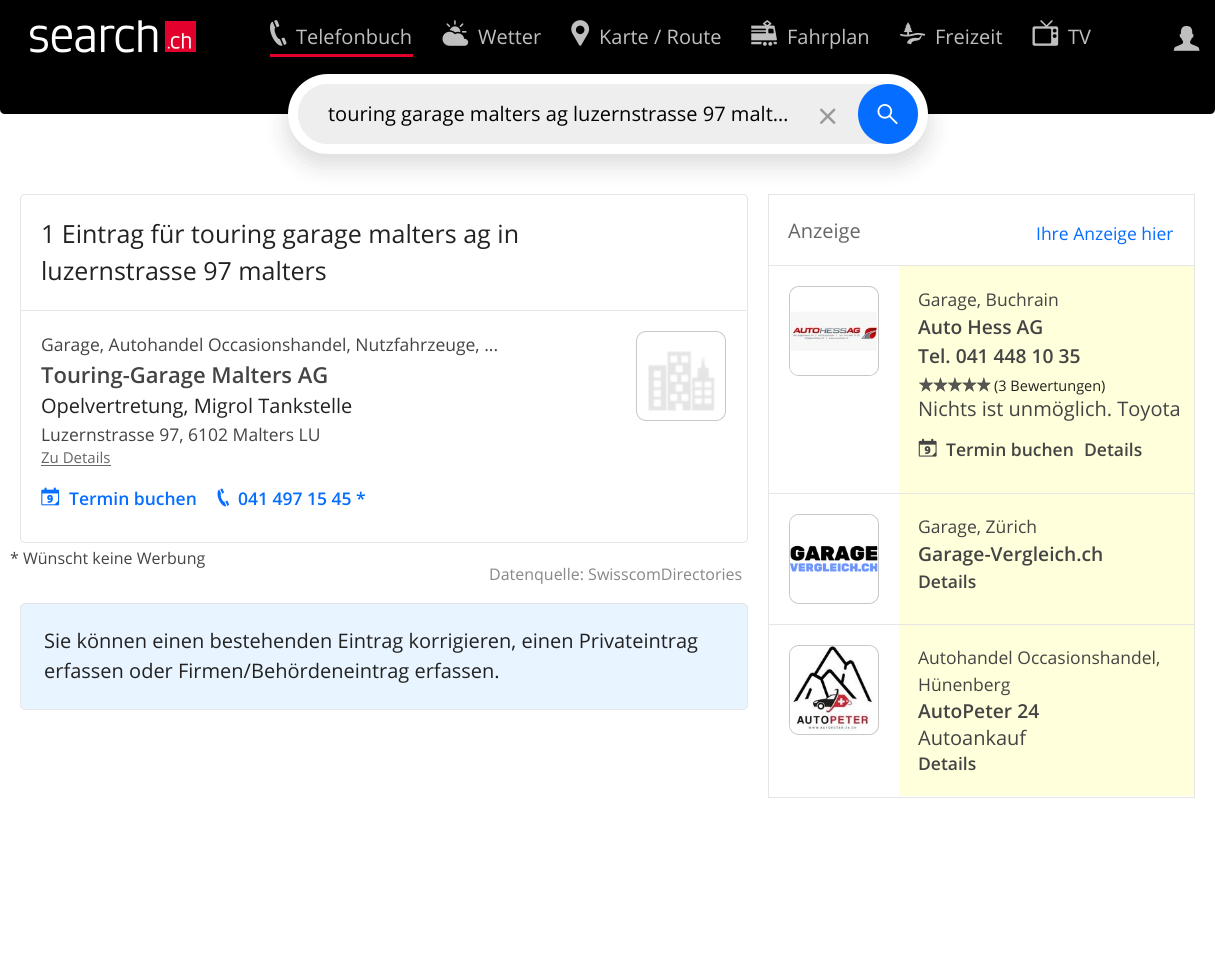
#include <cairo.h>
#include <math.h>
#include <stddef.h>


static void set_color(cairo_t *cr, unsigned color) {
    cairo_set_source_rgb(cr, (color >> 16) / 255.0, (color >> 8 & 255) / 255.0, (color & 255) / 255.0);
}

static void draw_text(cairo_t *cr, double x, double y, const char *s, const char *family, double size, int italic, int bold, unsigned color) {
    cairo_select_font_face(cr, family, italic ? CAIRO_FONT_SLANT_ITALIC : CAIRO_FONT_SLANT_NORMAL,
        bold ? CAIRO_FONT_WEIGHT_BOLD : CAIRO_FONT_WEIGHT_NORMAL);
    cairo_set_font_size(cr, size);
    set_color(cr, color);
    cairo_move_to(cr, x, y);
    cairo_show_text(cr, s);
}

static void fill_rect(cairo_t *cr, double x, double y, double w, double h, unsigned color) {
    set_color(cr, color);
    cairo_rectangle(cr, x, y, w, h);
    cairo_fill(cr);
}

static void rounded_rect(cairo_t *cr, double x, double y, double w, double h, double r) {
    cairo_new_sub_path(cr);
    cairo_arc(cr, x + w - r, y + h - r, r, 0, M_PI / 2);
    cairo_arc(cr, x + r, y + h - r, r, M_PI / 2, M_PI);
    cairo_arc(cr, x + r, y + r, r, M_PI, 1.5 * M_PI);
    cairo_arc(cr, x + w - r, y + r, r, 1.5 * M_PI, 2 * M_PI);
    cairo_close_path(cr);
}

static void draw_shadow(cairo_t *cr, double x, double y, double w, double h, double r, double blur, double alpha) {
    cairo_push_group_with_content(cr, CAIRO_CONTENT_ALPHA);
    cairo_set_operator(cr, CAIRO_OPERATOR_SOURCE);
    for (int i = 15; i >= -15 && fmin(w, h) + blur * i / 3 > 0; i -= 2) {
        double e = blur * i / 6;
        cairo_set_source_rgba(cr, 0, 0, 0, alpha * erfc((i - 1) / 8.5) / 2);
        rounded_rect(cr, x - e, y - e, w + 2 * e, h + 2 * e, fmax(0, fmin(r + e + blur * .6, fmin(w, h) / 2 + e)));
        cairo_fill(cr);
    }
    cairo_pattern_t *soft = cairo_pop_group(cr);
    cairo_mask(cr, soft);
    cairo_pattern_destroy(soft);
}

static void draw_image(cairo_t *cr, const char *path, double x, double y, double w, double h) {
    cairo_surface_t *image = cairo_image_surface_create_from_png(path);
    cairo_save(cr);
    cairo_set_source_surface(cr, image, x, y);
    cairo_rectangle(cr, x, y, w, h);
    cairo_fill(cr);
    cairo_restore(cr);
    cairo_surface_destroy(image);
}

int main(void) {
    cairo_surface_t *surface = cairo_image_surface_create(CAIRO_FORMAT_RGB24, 1215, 961);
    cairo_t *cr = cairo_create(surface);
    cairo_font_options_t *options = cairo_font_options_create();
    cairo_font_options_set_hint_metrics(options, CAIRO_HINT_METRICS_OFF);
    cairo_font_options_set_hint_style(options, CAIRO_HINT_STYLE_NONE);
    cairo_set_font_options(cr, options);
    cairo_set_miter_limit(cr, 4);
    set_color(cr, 0xFFFFFF);
    cairo_paint(cr);
    fill_rect(cr, 0, 0, 1215, 74, 0x000000);
    draw_image(cr, "assets/img1.png", 30, 20, 166, 33);
    fill_rect(cr, 270, 54, 143, 3, 0xE4002C);
    draw_image(cr, "assets/img2.png", 270, 20, 17, 26);
    draw_text(cr, 296, 44, "Telefonbuch", "Open Sans", 20, 0, 0, 0xBFBFBF);
    draw_image(cr, "assets/img3.png", 442, 20, 27, 26);
    draw_text(cr, 478, 44, "Wetter", "Open Sans", 20, 0, 0, 0xBFBFBF);
    draw_image(cr, "assets/img4.png", 571, 20, 19, 26);
    draw_text(cr, 599, 44, "Karte / Route", "Open Sans", 20, 0, 0, 0xBFBFBF);
    draw_image(cr, "assets/img5.png", 751, 20, 26, 26);
    draw_text(cr, 787, 44, "Fahrplan", "Open Sans", 20, 0, 0, 0xBFBFBF);
    draw_image(cr, "assets/img6.png", 900, 22, 26, 23);
    draw_text(cr, 935, 44, "Freizeit", "Open Sans", 20, 0, 0, 0xBFBFBF);
    draw_image(cr, "assets/img7.png", 1032, 20, 27, 26);
    draw_text(cr, 1068, 44, "TV", "Open Sans", 20, 0, 0, 0xBFBFBF);
    draw_image(cr, "assets/img8.png", 1173, 25, 27, 26);
    set_color(cr, 0x000000);
    cairo_new_path(cr);
    cairo_move_to(cr, 0, 74);
    cairo_line_to(cr, 1215, 74);
    cairo_line_to(cr, 1215, 109);
    cairo_curve_to(cr, 1215, 112, 1213, 114, 1210, 114);
    cairo_line_to(cr, 5, 114);
    cairo_curve_to(cr, 2, 114, 0, 112, 0, 109);
    cairo_close_path(cr);
    cairo_fill(cr);
    rounded_rect(cr, 20.5, 194.5, 727, 348, 4.5);
    set_color(cr, 0xE5E5E5);
    cairo_set_line_width(cr, 1);
    cairo_stroke(cr);
    cairo_rectangle(cr, 768.5, 194.5, 426, 603);
    cairo_stroke(cr);
    set_color(cr, 0x000000);
    draw_shadow(cr, 288, 84, 640, 80, 40, 12.5, 0.15);
    set_color(cr, 0xFFFFFF);
    rounded_rect(cr, 288, 74, 640, 80, 40);
    cairo_fill(cr);
    set_color(cr, 0xEEEEEE);
    rounded_rect(cr, 298, 84, 620, 60, 30);
    cairo_fill(cr);
    rounded_rect(cr, 298, 84, 500, 60, 30);
    cairo_fill(cr);
    draw_text(cr, 328, 121, "touring garage malters ag luzernstrasse 97 malt…", "Open Sans", 20, 0, 0, 0x000000);
    draw_image(cr, "assets/img9.png", 820, 108, 16, 16);
    set_color(cr, 0x056DFF);
    cairo_arc(cr, 888, 114, 30, 0, 2 * M_PI);
    cairo_fill(cr);
    draw_image(cr, "assets/img10.png", 877, 104, 21, 20);
    draw_text(cr, 41, 243, "1 Eintrag für touring garage malters ag in", "Open Sans", 25, 0, 0, 0x222222);
    draw_text(cr, 41, 280, "luzernstrasse 97 malters", "Open Sans", 25, 0, 0, 0x222222);
    fill_rect(cr, 21, 310, 725, 1, 0xE6E6E6);
    draw_text(cr, 41, 351, "Garage, Autohandel Occasionshandel, Nutzfahrzeuge, ...", "Open Sans", 17.5, 0, 0, 0x444444);
    draw_text(cr, 41, 383, "Touring-Garage Malters AG", "Open Sans SemiBold", 22, 0, 0, 0x444444);
    draw_text(cr, 41, 413, "Opelvertretung, Migrol Tankstelle", "Open Sans", 20, 0, 0, 0x222222);
    draw_text(cr, 41, 441, "Luzernstrasse 97, 6102 Malters LU", "Open Sans", 17.5, 0, 0, 0x444444);
    draw_text(cr, 41, 463, "Zu Details", "Open Sans", 15, 0, 0, 0x666666);
    fill_rect(cr, 41, 465, 70, 1, 0x666666);
    draw_image(cr, "assets/img11.png", 41, 487, 19, 19);
    draw_text(cr, 69, 505, "Termin buchen", "Open Sans SemiBold", 17.5, 0, 0, 0x056DFF);
    draw_image(cr, "assets/img12.png", 217, 488, 12, 19);
    draw_text(cr, 238, 505, "041 497 15 45 *", "Open Sans SemiBold", 17.5, 0, 0, 0x056DFF);
    rounded_rect(cr, 636.5, 331.5, 89, 89, 9.5);
    set_color(cr, 0xC8C8C8);
    cairo_stroke(cr);
    draw_image(cr, "assets/img13.png", 648, 351, 67, 60);
    draw_text(cr, 10, 564, "* Wünscht keine Werbung", "Open Sans", 16, 0, 0, 0x444444);
    draw_text(cr, 489, 580, "Datenquelle: SwisscomDirectories", "Open Sans", 16, 0, 0, 0x888888);
    set_color(cr, 0xE8F4FF);
    rounded_rect(cr, 20.5, 603.5, 727, 106, 4.5);
    cairo_fill_preserve(cr);
    set_color(cr, 0xE5E5E5);
    cairo_stroke(cr);
    draw_text(cr, 44, 648, "Sie können einen bestehenden Eintrag korrigieren, einen Privateintrag", "Open Sans", 20, 0, 0, 0x222222);
    draw_text(cr, 44, 678, "erfassen oder Firmen/Behördeneintrag erfassen.", "Open Sans", 20, 0, 0, 0x222222);
    draw_text(cr, 788, 238, "Anzeige", "Open Sans", 20, 0, 0, 0x666666);
    draw_text(cr, 1036, 240, "Ihre Anzeige hier", "Open Sans", 17.5, 0, 0, 0x056DFF);
    fill_rect(cr, 769, 265, 425, 1, 0xE6E6E6);
    rounded_rect(cr, 789.5, 286.5, 89, 89, 9.5);
    set_color(cr, 0xC8C8C8);
    cairo_stroke(cr);
    draw_image(cr, "assets/img14.png", 790, 291, 88, 84);
    fill_rect(cr, 899, 266, 295, 227, 0xFFFFDB);
    draw_text(cr, 918, 306, "Garage, Buchrain", "Open Sans", 17.5, 0, 0, 0x444444);
    draw_text(cr, 918, 334, "Auto Hess AG", "Open Sans SemiBold", 19.25, 0, 0, 0x444444);
    draw_text(cr, 918, 363, "Tel. 041 448 10 35", "Open Sans SemiBold", 19.25, 0, 0, 0x444444);
    draw_image(cr, "assets/img15.png", 919, 377, 72, 15);
    draw_image(cr, "assets/img16.png", 919, 377, 71, 15);
    draw_text(cr, 994, 391, "(3 Bewertungen)", "Open Sans", 14.5, 0, 0, 0x222222);
    draw_text(cr, 918, 416, "Nichts ist unmöglich. Toyota", "Open Sans", 20, 0, 0, 0x444444);
    draw_image(cr, "assets/img17.png", 918, 438, 19, 19);
    draw_text(cr, 946, 456, "Termin buchen", "Open Sans SemiBold", 17.5, 0, 0, 0x444444);
    draw_text(cr, 1084, 456, "Details", "Open Sans SemiBold", 17.5, 0, 0, 0x444444);
    fill_rect(cr, 769, 493, 425, 1, 0xE6E6E6);
    rounded_rect(cr, 789.5, 514.5, 89, 89, 9.5);
    set_color(cr, 0xC8C8C8);
    cairo_stroke(cr);
    draw_image(cr, "assets/img18.png", 790, 515, 88, 87);
    fill_rect(cr, 899, 494, 295, 130, 0xFFFFDB);
    draw_text(cr, 918, 533, "Garage, Zürich", "Open Sans", 17.5, 0, 0, 0x444444);
    draw_text(cr, 918, 561, "Garage-Vergleich.ch", "Open Sans SemiBold", 19.25, 0, 0, 0x444444);
    draw_text(cr, 918, 588, "Details", "Open Sans SemiBold", 17.5, 0, 0, 0x444444);
    fill_rect(cr, 769, 624, 425, 1, 0xE6E6E6);
    rounded_rect(cr, 789.5, 645.5, 89, 89, 9.5);
    set_color(cr, 0xC8C8C8);
    cairo_stroke(cr);
    draw_image(cr, "assets/img19.png", 790, 646, 85, 88);
    set_color(cr, 0xFFFFDB);
    cairo_new_path(cr);
    cairo_move_to(cr, 899, 625);
    cairo_line_to(cr, 1194, 625);
    cairo_line_to(cr, 1194, 791);
    cairo_curve_to(cr, 1194, 794, 1192, 796, 1189, 796);
    cairo_line_to(cr, 899, 796);
    cairo_close_path(cr);
    cairo_fill(cr);
    draw_text(cr, 918, 664, "Autohandel Occasionshandel,", "Open Sans", 17.5, 0, 0, 0x444444);
    draw_text(cr, 918, 691, "Hünenberg", "Open Sans", 17.5, 0, 0, 0x444444);
    draw_text(cr, 918, 718, "AutoPeter 24", "Open Sans SemiBold", 19.25, 0, 0, 0x444444);
    draw_text(cr, 918, 745, "Autoankauf", "Open Sans", 20, 0, 0, 0x444444);
    draw_text(cr, 918, 770, "Details", "Open Sans SemiBold", 17.5, 0, 0, 0x444444);
    cairo_surface_write_to_png(surface, "output.png");
    cairo_font_options_destroy(options);
    cairo_destroy(cr);
    cairo_surface_destroy(surface);
    return 0;
}
